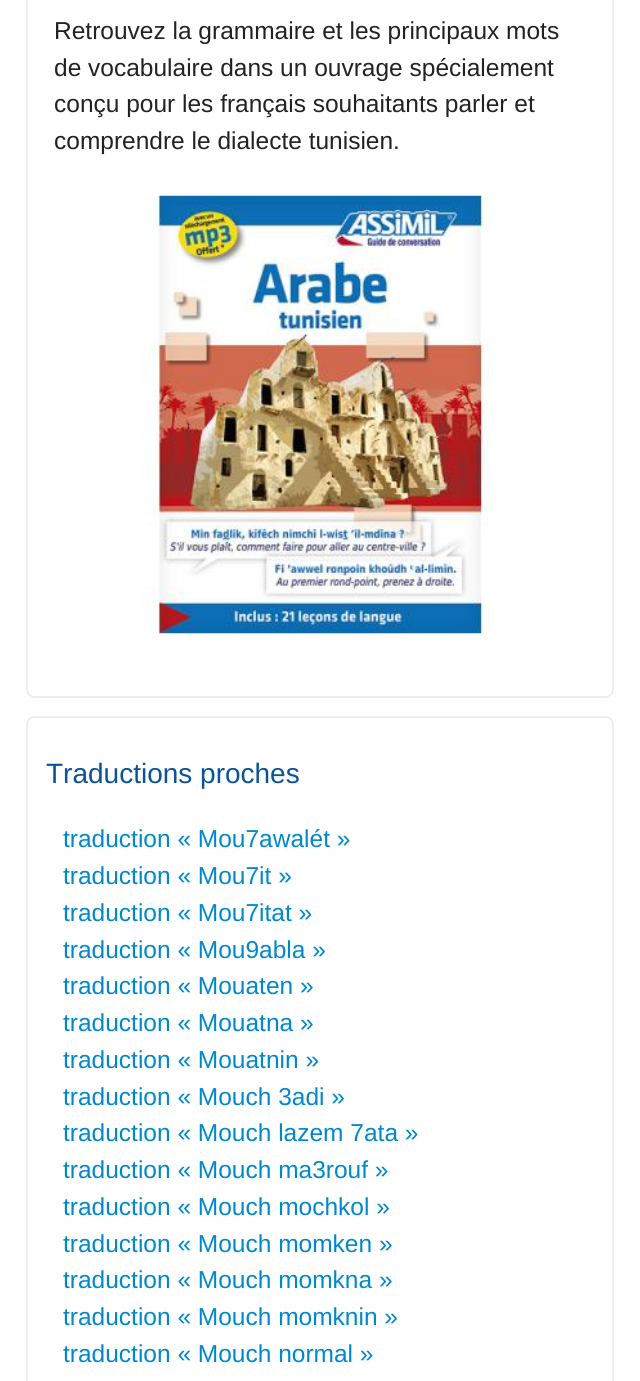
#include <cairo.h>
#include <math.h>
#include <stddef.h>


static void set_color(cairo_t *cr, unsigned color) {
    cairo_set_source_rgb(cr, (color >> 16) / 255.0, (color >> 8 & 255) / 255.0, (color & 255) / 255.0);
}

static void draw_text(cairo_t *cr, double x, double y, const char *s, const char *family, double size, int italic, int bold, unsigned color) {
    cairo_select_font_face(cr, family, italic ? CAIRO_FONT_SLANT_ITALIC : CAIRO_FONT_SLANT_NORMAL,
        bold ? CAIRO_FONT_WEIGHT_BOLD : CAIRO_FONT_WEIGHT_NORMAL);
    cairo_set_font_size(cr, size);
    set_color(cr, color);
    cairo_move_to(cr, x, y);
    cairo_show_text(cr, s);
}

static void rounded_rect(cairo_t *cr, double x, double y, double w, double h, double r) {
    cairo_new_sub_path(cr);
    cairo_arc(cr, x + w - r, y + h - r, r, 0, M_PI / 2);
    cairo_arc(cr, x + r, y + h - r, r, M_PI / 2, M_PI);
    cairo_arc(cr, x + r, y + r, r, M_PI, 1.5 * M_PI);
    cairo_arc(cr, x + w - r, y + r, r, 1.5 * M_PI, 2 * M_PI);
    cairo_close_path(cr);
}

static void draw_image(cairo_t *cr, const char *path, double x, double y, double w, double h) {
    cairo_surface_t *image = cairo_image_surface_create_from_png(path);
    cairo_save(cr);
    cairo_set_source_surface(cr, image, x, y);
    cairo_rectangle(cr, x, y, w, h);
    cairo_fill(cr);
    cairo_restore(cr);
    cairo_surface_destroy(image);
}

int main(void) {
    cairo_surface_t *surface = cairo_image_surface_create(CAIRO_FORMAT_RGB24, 640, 1381);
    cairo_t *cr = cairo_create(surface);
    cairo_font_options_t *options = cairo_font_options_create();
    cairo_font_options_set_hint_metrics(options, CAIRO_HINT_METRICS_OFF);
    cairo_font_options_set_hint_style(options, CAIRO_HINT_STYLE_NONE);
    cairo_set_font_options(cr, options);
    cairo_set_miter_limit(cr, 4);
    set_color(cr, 0xFFFFFF);
    cairo_paint(cr);
    rounded_rect(cr, 27, -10, 586, 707, 8);
    set_color(cr, 0xEEEEEE);
    cairo_stroke(cr);
    draw_text(cr, 54, 39, "Retrouvez la grammaire et les principaux mots", "Liberation Sans", 24.5, 0, 0, 0x222222);
    draw_text(cr, 54, 76, "de vocabulaire dans un ouvrage spécialement", "Liberation Sans", 24.5, 0, 0, 0x222222);
    draw_text(cr, 54, 112, "conçu pour les français souhaitants parler et", "Liberation Sans", 24.5, 0, 0, 0x222222);
    draw_text(cr, 54, 149, "comprendre le dialecte tunisien.", "Liberation Sans", 24.5, 0, 0, 0x222222);
    draw_image(cr, "assets/img1.png", 142, 195, 351, 439);
    rounded_rect(cr, 27, 717, 586, 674, 8);
    set_color(cr, 0xEEEEEE);
    cairo_stroke(cr);
    draw_text(cr, 46, 783, "Traductions proches", "Liberation Sans", 28, 0, 0, 0x0B5394);
    draw_text(cr, 63, 847, "traduction « Mou7awalét »", "Liberation Sans", 24.5, 0, 0, 0x0088CC);
    draw_text(cr, 63, 884, "traduction « Mou7it »", "Liberation Sans", 24.5, 0, 0, 0x0088CC);
    draw_text(cr, 63, 921, "traduction « Mou7itat »", "Liberation Sans", 24.5, 0, 0, 0x0088CC);
    draw_text(cr, 63, 958, "traduction « Mou9abla »", "Liberation Sans", 24.5, 0, 0, 0x0088CC);
    draw_text(cr, 63, 994, "traduction « Mouaten »", "Liberation Sans", 24.5, 0, 0, 0x0088CC);
    draw_text(cr, 63, 1031, "traduction « Mouatna »", "Liberation Sans", 24.5, 0, 0, 0x0088CC);
    draw_text(cr, 63, 1068, "traduction « Mouatnin »", "Liberation Sans", 24.5, 0, 0, 0x0088CC);
    draw_text(cr, 63, 1105, "traduction « Mouch 3adi »", "Liberation Sans", 24.5, 0, 0, 0x0088CC);
    draw_text(cr, 63, 1141, "traduction « Mouch lazem 7ata »", "Liberation Sans", 24.5, 0, 0, 0x0088CC);
    draw_text(cr, 63, 1178, "traduction « Mouch ma3rouf »", "Liberation Sans", 24.5, 0, 0, 0x0088CC);
    draw_text(cr, 63, 1215, "traduction « Mouch mochkol »", "Liberation Sans", 24.5, 0, 0, 0x0088CC);
    draw_text(cr, 63, 1252, "traduction « Mouch momken »", "Liberation Sans", 24.5, 0, 0, 0x0088CC);
    draw_text(cr, 63, 1288, "traduction « Mouch momkna »", "Liberation Sans", 24.5, 0, 0, 0x0088CC);
    draw_text(cr, 63, 1325, "traduction « Mouch momknin »", "Liberation Sans", 24.5, 0, 0, 0x0088CC);
    draw_text(cr, 63, 1362, "traduction « Mouch normal »", "Liberation Sans", 24.5, 0, 0, 0x0088CC);
    cairo_surface_write_to_png(surface, "output.png");
    cairo_font_options_destroy(options);
    cairo_destroy(cr);
    cairo_surface_destroy(surface);
    return 0;
}
